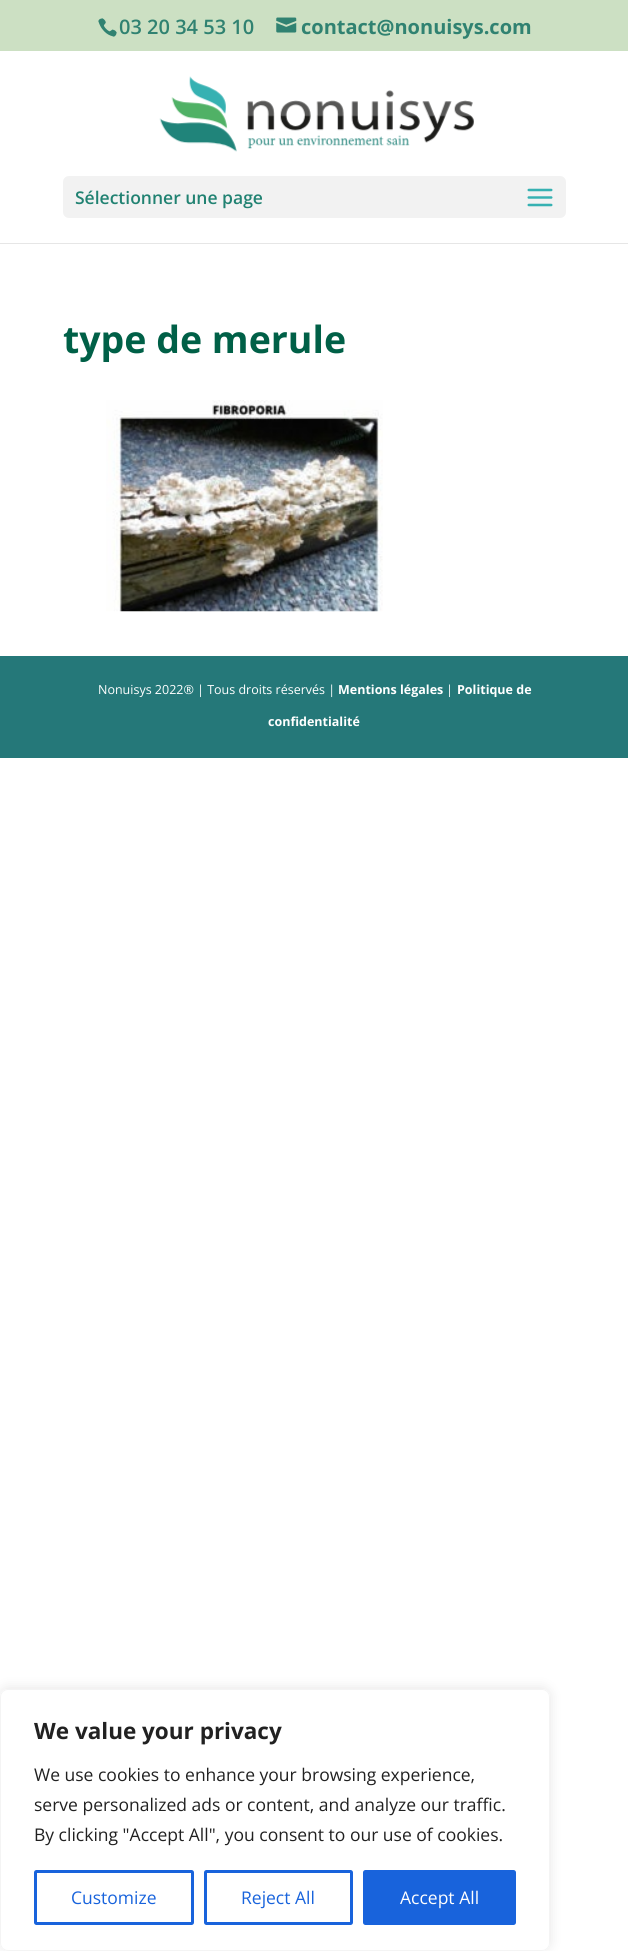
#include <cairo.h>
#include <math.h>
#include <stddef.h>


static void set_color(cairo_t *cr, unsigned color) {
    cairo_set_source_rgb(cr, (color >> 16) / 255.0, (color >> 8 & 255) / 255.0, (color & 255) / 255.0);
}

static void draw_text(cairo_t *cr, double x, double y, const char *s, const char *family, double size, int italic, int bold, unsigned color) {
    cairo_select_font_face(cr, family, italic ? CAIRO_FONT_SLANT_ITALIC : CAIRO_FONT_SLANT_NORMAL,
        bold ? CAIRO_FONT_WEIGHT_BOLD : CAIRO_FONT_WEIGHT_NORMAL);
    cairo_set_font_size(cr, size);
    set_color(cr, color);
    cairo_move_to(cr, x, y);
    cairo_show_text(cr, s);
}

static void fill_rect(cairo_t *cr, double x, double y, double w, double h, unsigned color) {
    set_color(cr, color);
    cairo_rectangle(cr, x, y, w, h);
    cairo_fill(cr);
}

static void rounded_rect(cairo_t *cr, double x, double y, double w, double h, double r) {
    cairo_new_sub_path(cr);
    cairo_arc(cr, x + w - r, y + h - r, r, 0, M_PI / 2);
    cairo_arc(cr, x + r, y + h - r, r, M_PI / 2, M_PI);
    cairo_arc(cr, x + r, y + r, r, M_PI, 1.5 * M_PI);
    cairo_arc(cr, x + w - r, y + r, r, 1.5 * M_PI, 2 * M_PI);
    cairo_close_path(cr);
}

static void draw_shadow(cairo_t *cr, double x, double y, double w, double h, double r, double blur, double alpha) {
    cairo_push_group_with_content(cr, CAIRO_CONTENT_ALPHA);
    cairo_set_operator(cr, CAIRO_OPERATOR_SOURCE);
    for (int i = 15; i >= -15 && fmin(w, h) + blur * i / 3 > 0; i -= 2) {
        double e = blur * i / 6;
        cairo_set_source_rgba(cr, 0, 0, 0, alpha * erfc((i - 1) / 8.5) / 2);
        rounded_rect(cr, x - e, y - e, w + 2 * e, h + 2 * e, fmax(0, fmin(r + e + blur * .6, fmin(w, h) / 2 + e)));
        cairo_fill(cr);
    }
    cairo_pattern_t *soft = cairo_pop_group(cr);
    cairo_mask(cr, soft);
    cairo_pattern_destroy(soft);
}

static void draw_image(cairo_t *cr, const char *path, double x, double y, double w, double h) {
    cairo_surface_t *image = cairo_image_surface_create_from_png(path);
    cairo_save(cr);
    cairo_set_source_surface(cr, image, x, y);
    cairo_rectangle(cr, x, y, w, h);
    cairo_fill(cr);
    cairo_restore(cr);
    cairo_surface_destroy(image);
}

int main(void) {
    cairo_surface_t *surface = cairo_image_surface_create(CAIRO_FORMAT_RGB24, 628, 1951);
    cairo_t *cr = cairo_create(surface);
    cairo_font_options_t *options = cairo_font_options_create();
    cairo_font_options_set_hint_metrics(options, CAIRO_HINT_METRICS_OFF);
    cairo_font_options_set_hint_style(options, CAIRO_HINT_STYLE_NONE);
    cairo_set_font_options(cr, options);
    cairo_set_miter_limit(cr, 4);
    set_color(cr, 0xFFFFFF);
    cairo_paint(cr);
    fill_rect(cr, 0, 0, 628, 51, 0xCCE0C3);
    draw_image(cr, "assets/img1.png", 98, 18, 19, 19);
    draw_text(cr, 119, 34, "03 20 34 53 10", "Open Sans SemiBold", 20, 0, 0, 0x308271);
    draw_image(cr, "assets/img2.png", 276, 17, 21, 16);
    draw_text(cr, 301, 34, "contact@nonuisys.com", "Open Sans", 20, 0, 1, 0x308271);
    set_color(cr, 0xE6E6E6);
    cairo_new_path(cr);
    cairo_move_to(cr, 0, 242);
    cairo_line_to(cr, 0, 244);
    cairo_line_to(cr, 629, 244);
    cairo_line_to(cr, 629, 53);
    cairo_line_to(cr, 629, 242);
    cairo_close_path(cr);
    cairo_fill(cr);
    fill_rect(cr, 0, 242, 628, 1, 0xFFFFFF);
    draw_image(cr, "assets/img3.png", 159, 76, 315, 76);
    set_color(cr, 0xF2F2F2);
    rounded_rect(cr, 63, 176, 503, 42, 6);
    cairo_fill(cr);
    draw_text(cr, 75, 204, "Sélectionner une page", "Open Sans SemiBold", 17.5, 0, 0, 0x218272);
    draw_image(cr, "assets/img4.png", 527, 188, 26, 19);
    draw_text(cr, 63, 353, "type de merule", "Open Sans", 37.5, 0, 1, 0x006047);
    draw_image(cr, "assets/img5.png", 106, 400, 277, 212);
    fill_rect(cr, 0, 656, 628, 102, 0x257879);
    draw_text(cr, 98, 694, "Nonuisys 2022® | Tous droits réservés |", "Open Sans", 12.5, 0, 0, 0xFFFFFF);
    draw_text(cr, 338, 694, "Mentions légales", "Open Sans", 12.5, 0, 1, 0xFFFFFF);
    draw_text(cr, 446, 694, "|", "Open Sans", 12.5, 0, 0, 0xFFFFFF);
    draw_text(cr, 457, 694, "Politique de", "Open Sans", 12.5, 0, 1, 0xFFFFFF);
    draw_text(cr, 268, 726, "confidentialité", "Open Sans", 12.5, 0, 1, 0xFFFFFF);
    cairo_save(cr);
    cairo_set_fill_rule(cr, CAIRO_FILL_RULE_EVEN_ODD);
    cairo_new_path(cr);
    cairo_move_to(cr, 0, 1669);
    cairo_line_to(cr, 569, 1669);
    cairo_line_to(cr, 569, 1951);
    cairo_line_to(cr, 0, 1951);
    cairo_close_path(cr);
    cairo_move_to(cr, 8, 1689);
    cairo_line_to(cr, 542, 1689);
    cairo_curve_to(cr, 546.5, 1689, 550, 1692.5, 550, 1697);
    cairo_line_to(cr, 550, 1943);
    cairo_curve_to(cr, 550, 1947.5, 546.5, 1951, 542, 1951);
    cairo_line_to(cr, 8, 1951);
    cairo_curve_to(cr, 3.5, 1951, 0, 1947.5, 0, 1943);
    cairo_line_to(cr, 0, 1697);
    cairo_curve_to(cr, 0, 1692.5, 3.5, 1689, 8, 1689);
    cairo_close_path(cr);
    cairo_clip(cr);
    set_color(cr, 0xACABAB);
    draw_shadow(cr, 0, 1688, 550, 262, 8, 6, 0.3);
    cairo_restore(cr);
    rounded_rect(cr, 0.5, 1689.5, 549, 261, 7.5);
    set_color(cr, 0xF4F4F4);
    cairo_set_line_width(cr, 1);
    cairo_stroke(cr);
    draw_text(cr, 34, 1739, "We value your privacy", "Open Sans", 22.5, 0, 1, 0x212121);
    draw_text(cr, 34, 1781, "We use cookies to enhance your browsing experience,", "Open Sans", 17.5, 0, 0, 0x212121);
    draw_text(cr, 34, 1811, "serve personalized ads or content, and analyze our traffic.", "Open Sans", 17.5, 0, 0, 0x212121);
    draw_text(cr, 34, 1841, "By clicking \"Accept All\", you consent to our use of cookies.", "Open Sans", 17.5, 0, 0, 0x212121);
    rounded_rect(cr, 35.5, 1871.5, 157, 52, 1);
    set_color(cr, 0x1863DC);
    cairo_set_line_width(cr, 3);
    cairo_stroke(cr);
    draw_text(cr, 71, 1904, "Customize", "Open Sans", 17.5, 0, 0, 0x1863DC);
    rounded_rect(cr, 205.5, 1871.5, 146, 52, 1);
    cairo_stroke(cr);
    draw_text(cr, 241, 1904, "Reject All", "Open Sans", 17.5, 0, 0, 0x1863DC);
    rounded_rect(cr, 364.5, 1871.5, 150, 52, 1);
    cairo_fill_preserve(cr);
    cairo_stroke(cr);
    draw_text(cr, 400, 1904, "Accept All", "Open Sans", 17.5, 0, 0, 0xFFFFFF);
    cairo_surface_write_to_png(surface, "output.png");
    cairo_font_options_destroy(options);
    cairo_destroy(cr);
    cairo_surface_destroy(surface);
    return 0;
}
